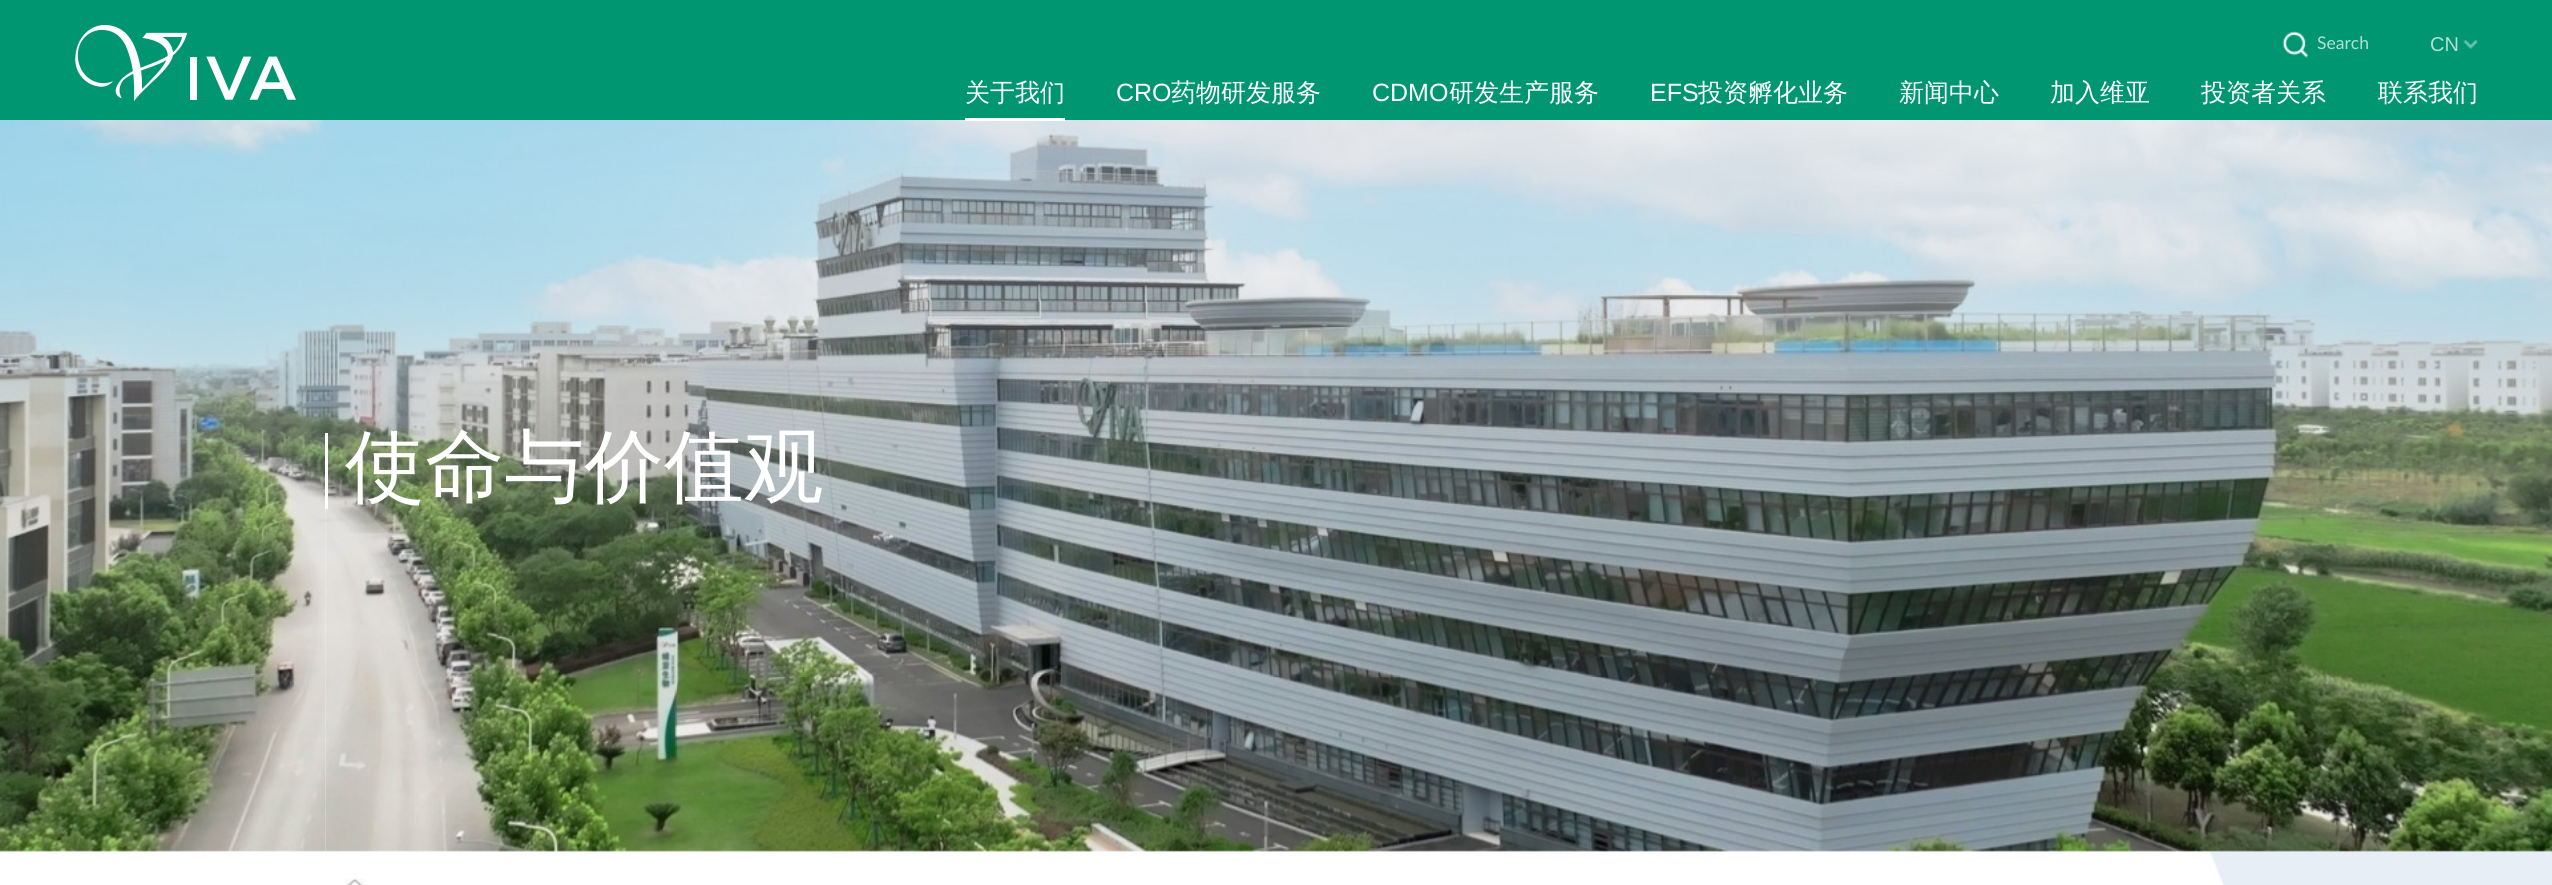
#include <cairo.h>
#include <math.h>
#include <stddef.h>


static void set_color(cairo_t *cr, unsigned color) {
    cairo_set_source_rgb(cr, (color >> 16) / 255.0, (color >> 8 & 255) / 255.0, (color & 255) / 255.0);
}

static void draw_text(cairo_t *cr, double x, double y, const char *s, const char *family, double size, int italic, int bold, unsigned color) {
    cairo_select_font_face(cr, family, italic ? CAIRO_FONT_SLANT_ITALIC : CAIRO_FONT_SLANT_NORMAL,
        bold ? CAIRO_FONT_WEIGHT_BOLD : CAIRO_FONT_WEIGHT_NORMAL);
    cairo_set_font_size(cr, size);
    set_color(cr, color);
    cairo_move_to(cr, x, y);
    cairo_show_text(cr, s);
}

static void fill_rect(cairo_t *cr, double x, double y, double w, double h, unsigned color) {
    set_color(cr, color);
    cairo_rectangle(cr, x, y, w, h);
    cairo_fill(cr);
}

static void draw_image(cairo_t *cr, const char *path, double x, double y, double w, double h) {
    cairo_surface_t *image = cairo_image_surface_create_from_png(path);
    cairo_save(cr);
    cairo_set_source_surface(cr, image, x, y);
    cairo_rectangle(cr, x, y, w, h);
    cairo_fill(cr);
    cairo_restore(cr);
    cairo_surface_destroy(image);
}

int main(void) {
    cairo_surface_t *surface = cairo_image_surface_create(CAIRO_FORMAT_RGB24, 2552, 885);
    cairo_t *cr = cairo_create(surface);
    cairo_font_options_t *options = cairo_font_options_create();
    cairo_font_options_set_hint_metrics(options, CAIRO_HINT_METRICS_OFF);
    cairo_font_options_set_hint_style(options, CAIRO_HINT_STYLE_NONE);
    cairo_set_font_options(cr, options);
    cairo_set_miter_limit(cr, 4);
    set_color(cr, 0xFFFFFF);
    cairo_paint(cr);
    fill_rect(cr, 0, 0, 2552, 120, 0x009672);
    draw_image(cr, "assets/img1.png", 75, 25, 221, 76);
    draw_image(cr, "assets/img2.png", 2282, 31, 27, 27);
    draw_text(cr, 2317, 49, "Search", "Lato", 17.5, 0, 0, 0xB3E0D5);
    draw_image(cr, "assets/img3.png", 2463, 40, 15, 9);
    draw_text(cr, 2430, 51, "CN", "Liberation Sans", 20, 0, 0, 0xB3E0D5);
    draw_text(cr, 965, 101, "关于我们", "WenQuanYi Zen Hei Medium", 25, 0, 0, 0xFFFFFF);
    draw_image(cr, "assets/img4.png", 0, 120, 2552, 732);
    fill_rect(cr, 965, 118, 100, 3, 0xFFFFFF);
    draw_text(cr, 1116, 101, "CRO", "Liberation Sans", 25, 0, 0, 0xFFFFFF);
    draw_text(cr, 1171, 101, "药物研发服务", "WenQuanYi Zen Hei Medium", 25, 0, 0, 0xFFFFFF);
    draw_text(cr, 1372, 101, "CDMO", "Liberation Sans", 25, 0, 0, 0xFFFFFF);
    draw_text(cr, 1449, 101, "研发生产服务", "WenQuanYi Zen Hei Medium", 25, 0, 0, 0xFFFFFF);
    draw_text(cr, 1650, 101, "EFS", "Liberation Sans", 25, 0, 0, 0xFFFFFF);
    draw_text(cr, 1698, 101, "投资孵化业务", "WenQuanYi Zen Hei Medium", 25, 0, 0, 0xFFFFFF);
    draw_text(cr, 1899, 101, "新闻中心", "WenQuanYi Zen Hei Medium", 25, 0, 0, 0xFFFFFF);
    draw_text(cr, 2050, 101, "加入维亚", "WenQuanYi Zen Hei Medium", 25, 0, 0, 0xFFFFFF);
    draw_text(cr, 2201, 101, "投资者关系", "WenQuanYi Zen Hei Medium", 25, 0, 0, 0xFFFFFF);
    draw_text(cr, 2378, 101, "联系我们", "WenQuanYi Zen Hei Medium", 25, 0, 0, 0xFFFFFF);
    fill_rect(cr, 325, 433, 3, 76, 0xFFFFFF);
    draw_text(cr, 345, 494, "使命与价值观", "WenQuanYi Zen Hei Medium", 79.75, 0, 0, 0xFFFFFF);
    cairo_set_source_rgba(cr, 1, 1, 1, 0.2);
    cairo_rectangle(cr, 325, 509, 1, 342);
    cairo_fill(cr);
    draw_image(cr, "assets/img5.png", 2209, 851, 343, 34);
    draw_image(cr, "assets/img6.png", 345, 878, 20, 7);
    cairo_surface_write_to_png(surface, "output.png");
    cairo_font_options_destroy(options);
    cairo_destroy(cr);
    cairo_surface_destroy(surface);
    return 0;
}
